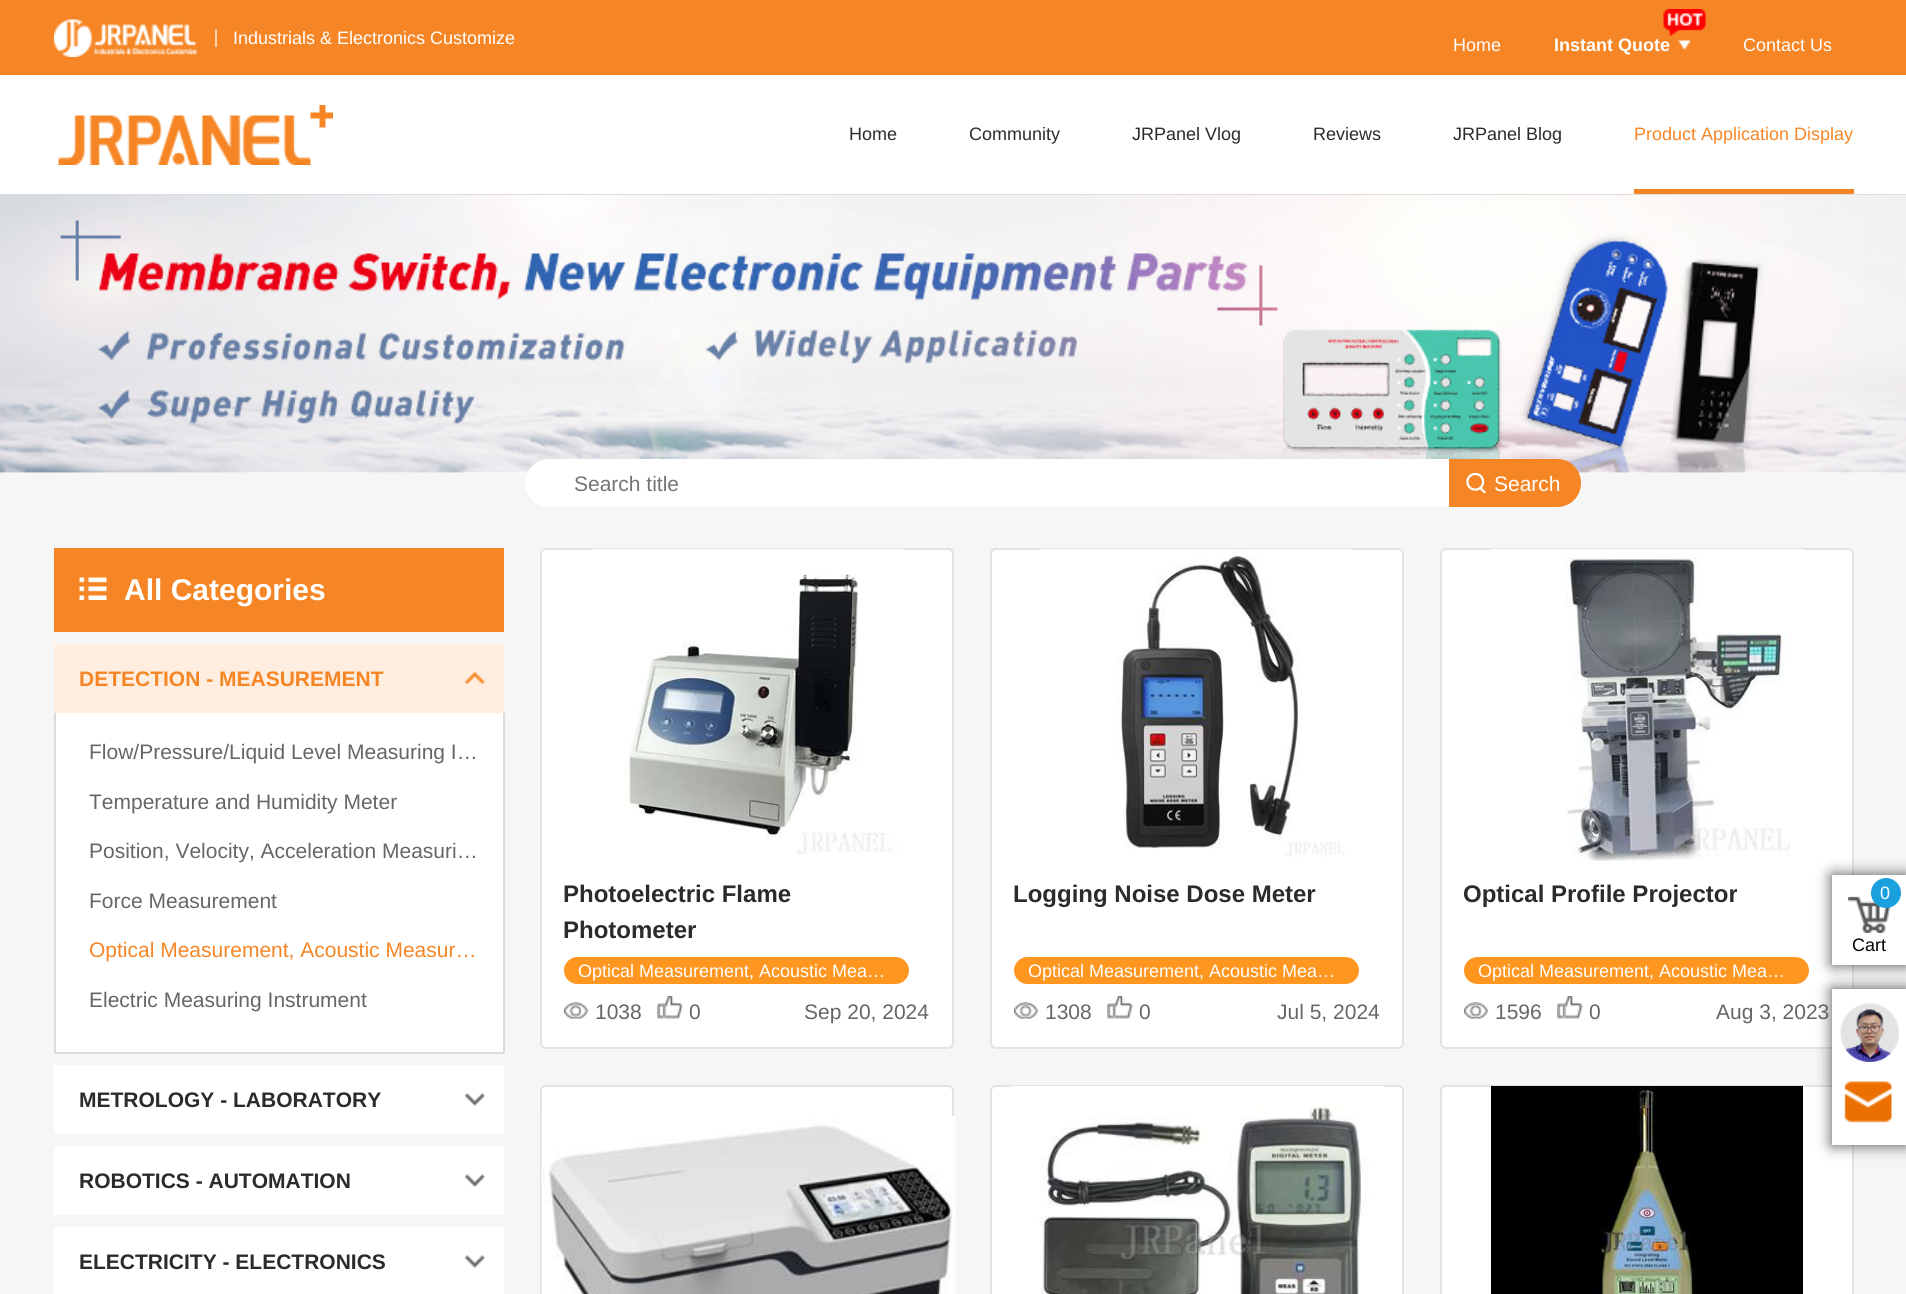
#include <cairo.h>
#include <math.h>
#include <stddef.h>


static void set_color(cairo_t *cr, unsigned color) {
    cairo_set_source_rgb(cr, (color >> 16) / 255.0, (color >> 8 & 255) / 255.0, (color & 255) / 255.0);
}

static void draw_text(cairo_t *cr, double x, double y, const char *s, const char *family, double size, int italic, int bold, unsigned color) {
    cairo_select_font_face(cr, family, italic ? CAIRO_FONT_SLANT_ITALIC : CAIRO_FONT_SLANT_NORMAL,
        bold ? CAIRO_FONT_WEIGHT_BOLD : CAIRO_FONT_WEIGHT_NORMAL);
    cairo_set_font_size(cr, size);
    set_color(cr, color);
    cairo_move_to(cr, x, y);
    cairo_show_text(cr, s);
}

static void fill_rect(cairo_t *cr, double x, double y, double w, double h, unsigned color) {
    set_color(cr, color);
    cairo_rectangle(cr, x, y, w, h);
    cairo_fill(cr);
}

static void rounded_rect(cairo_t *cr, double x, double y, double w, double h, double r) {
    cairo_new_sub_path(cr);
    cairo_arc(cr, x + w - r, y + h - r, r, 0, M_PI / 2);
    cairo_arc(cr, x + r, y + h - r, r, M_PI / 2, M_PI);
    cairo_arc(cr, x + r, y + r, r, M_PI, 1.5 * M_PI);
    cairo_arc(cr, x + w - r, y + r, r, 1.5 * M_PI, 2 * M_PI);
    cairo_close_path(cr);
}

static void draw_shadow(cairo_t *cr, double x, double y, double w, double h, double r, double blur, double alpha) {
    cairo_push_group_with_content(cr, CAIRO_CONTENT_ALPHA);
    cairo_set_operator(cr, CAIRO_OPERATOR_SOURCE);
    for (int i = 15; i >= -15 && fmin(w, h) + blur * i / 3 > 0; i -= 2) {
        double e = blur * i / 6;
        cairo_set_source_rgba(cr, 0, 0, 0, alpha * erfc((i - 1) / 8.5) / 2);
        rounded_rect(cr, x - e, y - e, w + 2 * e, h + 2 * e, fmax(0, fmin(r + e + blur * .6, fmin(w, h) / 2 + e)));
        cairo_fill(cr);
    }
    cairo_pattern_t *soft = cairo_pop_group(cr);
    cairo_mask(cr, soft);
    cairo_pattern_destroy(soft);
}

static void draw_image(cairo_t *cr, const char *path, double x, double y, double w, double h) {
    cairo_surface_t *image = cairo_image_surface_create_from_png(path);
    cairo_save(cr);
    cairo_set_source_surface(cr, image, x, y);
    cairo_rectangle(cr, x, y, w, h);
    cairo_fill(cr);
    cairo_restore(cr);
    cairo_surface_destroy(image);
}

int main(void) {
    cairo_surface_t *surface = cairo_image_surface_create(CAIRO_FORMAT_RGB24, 1906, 1294);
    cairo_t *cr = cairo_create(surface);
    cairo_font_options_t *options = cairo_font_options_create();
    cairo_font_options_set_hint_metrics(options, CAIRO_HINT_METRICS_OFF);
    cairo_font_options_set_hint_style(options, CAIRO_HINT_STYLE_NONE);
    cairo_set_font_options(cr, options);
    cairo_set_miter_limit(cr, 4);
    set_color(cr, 0xFFFFFF);
    cairo_paint(cr);
    fill_rect(cr, 0, 0, 1906, 75, 0xF68625);
    draw_image(cr, "assets/img1.png", 54, 19, 143, 38);
    fill_rect(cr, 215, 29, 2, 18, 0xFBCFA8);
    draw_text(cr, 233, 44, "Industrials & Electronics Customize", "Liberation Sans", 18, 0, 0, 0xFFFFFF);
    draw_text(cr, 1453, 51, "Home", "Liberation Sans", 18, 0, 0, 0xFFFFFF);
    draw_image(cr, "assets/img2.png", 1663, 9, 43, 27);
    draw_text(cr, 1554, 51, "Instant Quote", "Liberation Sans", 18, 0, 1, 0xFFFFFF);
    draw_image(cr, "assets/img3.png", 1678, 40, 13, 10);
    draw_text(cr, 1743, 51, "Contact Us", "Liberation Sans", 18, 0, 0, 0xFFFFFF);
    fill_rect(cr, 0, 194, 1906, 1, 0xDDDDDD);
    draw_image(cr, "assets/img4.png", 58, 105, 275, 60);
    draw_text(cr, 849, 140, "Home", "Liberation Sans", 18, 0, 0, 0x2B2B2B);
    draw_text(cr, 969, 140, "Community", "Liberation Sans", 18, 0, 0, 0x2B2B2B);
    draw_text(cr, 1132, 140, "JRPanel Vlog", "Liberation Sans", 18, 0, 0, 0x2B2B2B);
    draw_text(cr, 1313, 140, "Reviews", "Liberation Sans", 18, 0, 0, 0x2B2B2B);
    draw_text(cr, 1453, 140, "JRPanel Blog", "Liberation Sans", 18, 0, 0, 0x2B2B2B);
    fill_rect(cr, 1634, 189, 220, 5, 0xF68625);
    draw_text(cr, 1634, 140, "Product Application Display", "Liberation Sans", 18, 0, 0, 0xF68625);
    draw_image(cr, "assets/img5.png", 0, 195, 1906, 278);
    fill_rect(cr, 0, 473, 1906, 821, 0xF6F6F6);
    set_color(cr, 0xFFFFFF);
    cairo_new_path(cr);
    cairo_move_to(cr, 549, 460);
    cairo_line_to(cr, 1448, 460);
    cairo_line_to(cr, 1448, 506);
    cairo_line_to(cr, 549, 506);
    cairo_curve_to(cr, 536.5, 506, 526, 495.5, 526, 483);
    cairo_curve_to(cr, 526, 470.5, 536.5, 460, 549, 460);
    cairo_close_path(cr);
    cairo_fill_preserve(cr);
    cairo_stroke(cr);
    draw_text(cr, 574, 491, "Search title", "Liberation Sans", 21, 0, 0, 0x757575);
    set_color(cr, 0xF68625);
    cairo_new_path(cr);
    cairo_move_to(cr, 1449, 459);
    cairo_line_to(cr, 1557, 459);
    cairo_curve_to(cr, 1570.5, 459, 1581, 469.5, 1581, 483);
    cairo_curve_to(cr, 1581, 496.5, 1570.5, 507, 1557, 507);
    cairo_line_to(cr, 1449, 507);
    cairo_close_path(cr);
    cairo_fill(cr);
    draw_image(cr, "assets/img6.png", 1466, 472, 20, 22);
    draw_text(cr, 1494, 491, "Search", "Liberation Sans", 21, 0, 0, 0xFFFFFF);
    fill_rect(cr, 54, 548, 450, 84, 0xF68625);
    draw_image(cr, "assets/img7.png", 79, 577, 28, 23);
    draw_text(cr, 124, 600, "All Categories", "Liberation Sans", 30, 0, 1, 0xFFFFFF);
    fill_rect(cr, 54, 644, 450, 69, 0xFFEEE0);
    draw_text(cr, 79, 686, "DETECTION - MEASUREMENT", "Liberation Sans", 21, 0, 1, 0xF68625);
    draw_image(cr, "assets/img8.png", 465, 672, 20, 12);
    fill_rect(cr, 56, 713, 447, 339, 0xFFFFFF);
    fill_rect(cr, 503, 713, 2, 340, 0xDBDBDB);
    fill_rect(cr, 54, 1052, 450, 2, 0xDBDBDB);
    fill_rect(cr, 54, 713, 2, 340, 0xDBDBDB);
    draw_text(cr, 89, 759, "Flow/Pressure/Liquid Level Measuring I…", "Liberation Sans", 21, 0, 0, 0x666666);
    draw_text(cr, 89, 809, "Temperature and Humidity Meter", "Liberation Sans", 21, 0, 0, 0x666666);
    draw_text(cr, 89, 858, "Position, Velocity, Acceleration Measuri…", "Liberation Sans", 21, 0, 0, 0x666666);
    draw_text(cr, 89, 908, "Force Measurement", "Liberation Sans", 21, 0, 0, 0x666666);
    draw_text(cr, 89, 957, "Optical Measurement, Acoustic Measur…", "Liberation Sans", 21, 0, 0, 0xF68625);
    draw_text(cr, 89, 1007, "Electric Measuring Instrument", "Liberation Sans", 21, 0, 0, 0x666666);
    fill_rect(cr, 54, 1065, 450, 69, 0xFFFFFF);
    draw_text(cr, 79, 1107, "METROLOGY - LABORATORY", "Liberation Sans", 21, 0, 1, 0x2B2B2B);
    draw_image(cr, "assets/img9.png", 465, 1093, 20, 13);
    fill_rect(cr, 54, 1146, 450, 69, 0xFFFFFF);
    draw_text(cr, 79, 1188, "ROBOTICS - AUTOMATION", "Liberation Sans", 21, 0, 1, 0x2B2B2B);
    draw_image(cr, "assets/img9.png", 465, 1174, 20, 13);
    fill_rect(cr, 54, 1227, 450, 67, 0xFFFFFF);
    draw_text(cr, 79, 1269, "ELECTRICITY - ELECTRONICS", "Liberation Sans", 21, 0, 1, 0x2B2B2B);
    draw_image(cr, "assets/img9.png", 465, 1255, 20, 13);
    set_color(cr, 0xFFFFFF);
    rounded_rect(cr, 541, 549, 412, 499, 5);
    cairo_fill_preserve(cr);
    set_color(cr, 0xE3E3E3);
    cairo_stroke(cr);
    draw_image(cr, "assets/img10.png", 591, 549, 312, 306);
    draw_text(cr, 563, 902, "Photoelectric Flame", "Liberation Sans", 24, 0, 1, 0x2B2B2B);
    draw_text(cr, 563, 938, "Photometer", "Liberation Sans", 24, 0, 1, 0x2B2B2B);
    set_color(cr, 0xFF9620);
    rounded_rect(cr, 564, 957, 345, 27, 13.5);
    cairo_fill(cr);
    draw_text(cr, 578, 977, "Optical Measurement, Acoustic Mea…", "Liberation Sans", 18, 0, 0, 0xFFFFFF);
    draw_image(cr, "assets/img11.png", 564, 1002, 24, 17);
    draw_text(cr, 595, 1019, "1038", "Liberation Sans", 21, 0, 0, 0x666666);
    draw_image(cr, "assets/img12.png", 657, 996, 26, 23);
    draw_text(cr, 689, 1019, "0", "Liberation Sans", 21, 0, 0, 0x666666);
    draw_text(cr, 804, 1019, "Sep 20, 2024", "Liberation Sans", 21, 0, 0, 0x666666);
    set_color(cr, 0xFFFFFF);
    rounded_rect(cr, 991, 549, 412, 499, 5);
    cairo_fill_preserve(cr);
    set_color(cr, 0xE3E3E3);
    cairo_stroke(cr);
    draw_image(cr, "assets/img13.png", 1041, 549, 312, 308);
    draw_text(cr, 1013, 902, "Logging Noise Dose Meter", "Liberation Sans", 24, 0, 1, 0x2B2B2B);
    set_color(cr, 0xFF9620);
    rounded_rect(cr, 1014, 957, 345, 27, 13.5);
    cairo_fill(cr);
    draw_text(cr, 1028, 977, "Optical Measurement, Acoustic Mea…", "Liberation Sans", 18, 0, 0, 0xFFFFFF);
    draw_image(cr, "assets/img14.png", 1014, 1002, 24, 17);
    draw_text(cr, 1045, 1019, "1308", "Liberation Sans", 21, 0, 0, 0x666666);
    draw_image(cr, "assets/img15.png", 1107, 996, 26, 23);
    draw_text(cr, 1139, 1019, "0", "Liberation Sans", 21, 0, 0, 0x666666);
    draw_text(cr, 1277, 1019, "Jul 5, 2024", "Liberation Sans", 21, 0, 0, 0x666666);
    set_color(cr, 0xFFFFFF);
    rounded_rect(cr, 1441, 549, 412, 499, 5);
    cairo_fill_preserve(cr);
    set_color(cr, 0xE3E3E3);
    cairo_stroke(cr);
    draw_image(cr, "assets/img16.png", 1491, 549, 312, 312);
    draw_text(cr, 1463, 902, "Optical Profile Projector", "Liberation Sans", 24, 0, 1, 0x2B2B2B);
    set_color(cr, 0xFF9620);
    rounded_rect(cr, 1464, 957, 345, 27, 13.5);
    cairo_fill(cr);
    draw_text(cr, 1478, 977, "Optical Measurement, Acoustic Mea…", "Liberation Sans", 18, 0, 0, 0xFFFFFF);
    draw_image(cr, "assets/img11.png", 1464, 1002, 24, 17);
    draw_text(cr, 1495, 1019, "1596", "Liberation Sans", 21, 0, 0, 0x666666);
    draw_image(cr, "assets/img12.png", 1557, 996, 26, 23);
    draw_text(cr, 1589, 1019, "0", "Liberation Sans", 21, 0, 0, 0x666666);
    draw_text(cr, 1716, 1019, "Aug 3, 2023", "Liberation Sans", 21, 0, 0, 0x666666);
    set_color(cr, 0xFFFFFF);
    rounded_rect(cr, 541, 1086, 412, 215, 5);
    cairo_fill_preserve(cr);
    set_color(cr, 0xE3E3E3);
    cairo_stroke(cr);
    draw_image(cr, "assets/img17.png", 541, 1116, 415, 178);
    set_color(cr, 0xFFFFFF);
    rounded_rect(cr, 991, 1086, 412, 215, 5);
    cairo_fill_preserve(cr);
    set_color(cr, 0xE3E3E3);
    cairo_stroke(cr);
    draw_image(cr, "assets/img18.png", 1009, 1086, 376, 208);
    set_color(cr, 0xFFFFFF);
    rounded_rect(cr, 1441, 1086, 412, 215, 5);
    cairo_fill_preserve(cr);
    set_color(cr, 0xE3E3E3);
    cairo_stroke(cr);
    draw_image(cr, "assets/img19.png", 1491, 1086, 312, 208);
    set_color(cr, 0x4F4F4F);
    draw_shadow(cr, 1832, 875, 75, 90, 0, 7.5, 1);
    fill_rect(cr, 1832, 875, 74, 90, 0xFFFFFF);
    draw_image(cr, "assets/img20.png", 1848, 896, 43, 37);
    set_color(cr, 0x1AA0DD);
    cairo_arc(cr, 1886, 893, 15, 0, 2 * M_PI);
    cairo_fill(cr);
    draw_text(cr, 1880, 899, "0", "Liberation Sans", 18, 0, 0, 0xFFFFFF);
    draw_text(cr, 1852, 951, "Cart", "Liberation Sans", 18, 0, 0, 0x000000);
    set_color(cr, 0x4F4F4F);
    draw_shadow(cr, 1832, 989, 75, 156, 0, 7.5, 1);
    fill_rect(cr, 1832, 989, 74, 156, 0xFFFFFF);
    draw_image(cr, "assets/img21.png", 1840, 1003, 59, 59);
    draw_image(cr, "assets/img22.png", 1844, 1081, 48, 42);
    cairo_surface_write_to_png(surface, "output.png");
    cairo_font_options_destroy(options);
    cairo_destroy(cr);
    cairo_surface_destroy(surface);
    return 0;
}
